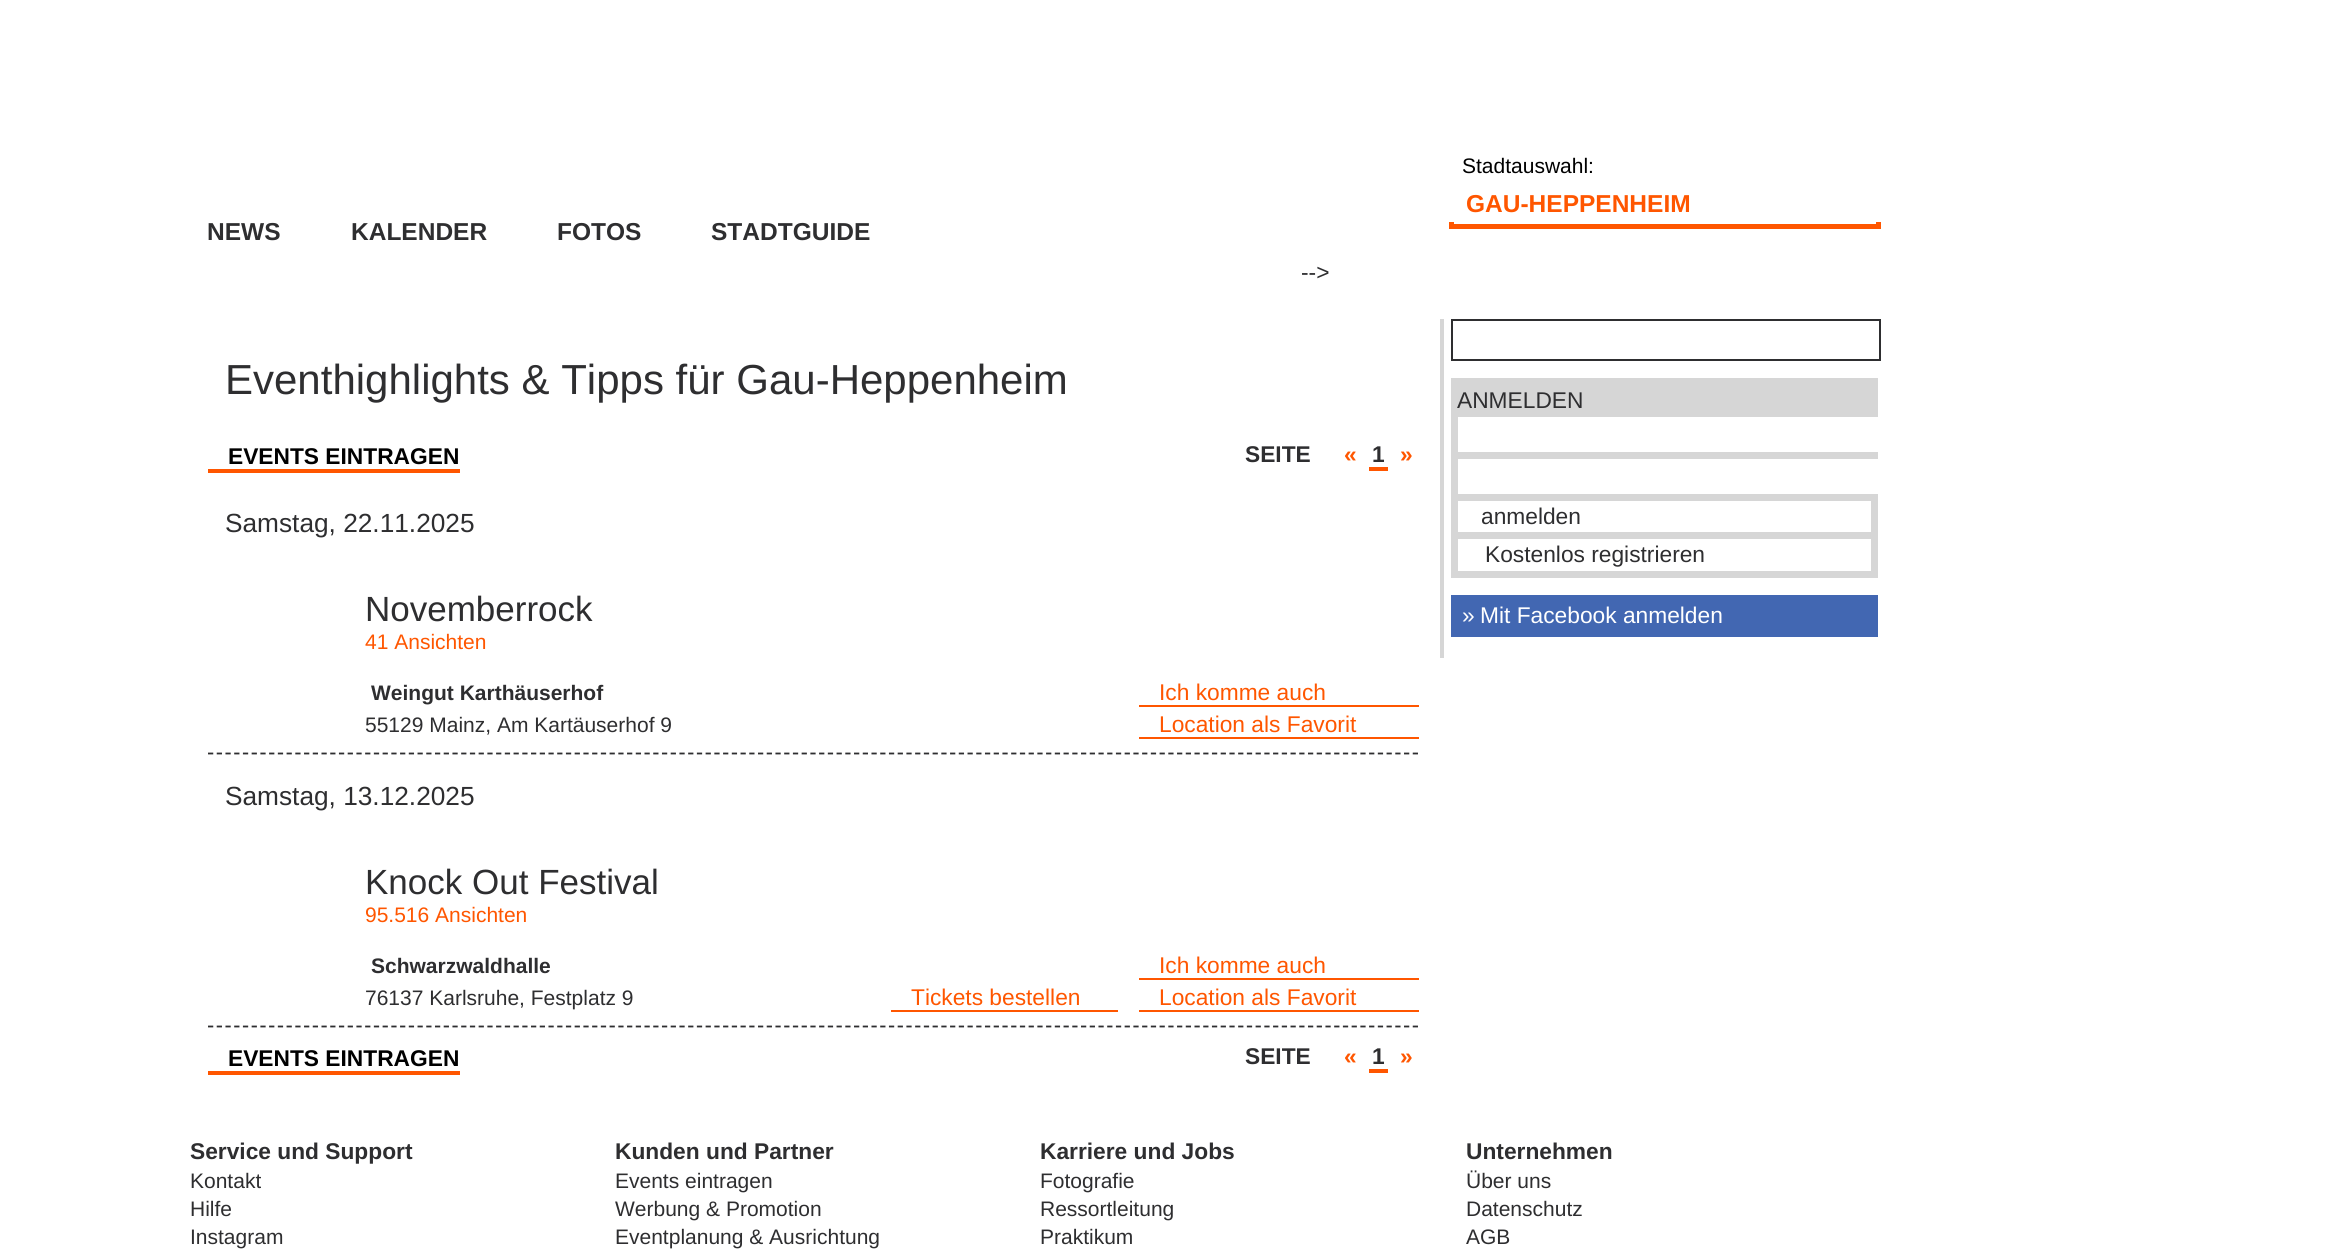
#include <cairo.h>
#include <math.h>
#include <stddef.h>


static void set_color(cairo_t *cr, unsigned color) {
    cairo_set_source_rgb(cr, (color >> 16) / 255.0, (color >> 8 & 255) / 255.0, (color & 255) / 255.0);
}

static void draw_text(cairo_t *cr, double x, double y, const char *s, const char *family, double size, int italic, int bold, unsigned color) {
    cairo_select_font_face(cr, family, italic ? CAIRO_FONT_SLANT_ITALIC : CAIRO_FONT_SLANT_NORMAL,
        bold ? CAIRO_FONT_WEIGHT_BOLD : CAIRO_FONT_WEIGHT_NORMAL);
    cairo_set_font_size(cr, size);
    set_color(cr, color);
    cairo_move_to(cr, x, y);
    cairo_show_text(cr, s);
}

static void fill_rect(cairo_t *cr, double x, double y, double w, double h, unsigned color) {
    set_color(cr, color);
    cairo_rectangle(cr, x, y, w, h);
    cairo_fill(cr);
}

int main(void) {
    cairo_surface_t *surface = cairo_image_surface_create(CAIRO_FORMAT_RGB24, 2349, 1259);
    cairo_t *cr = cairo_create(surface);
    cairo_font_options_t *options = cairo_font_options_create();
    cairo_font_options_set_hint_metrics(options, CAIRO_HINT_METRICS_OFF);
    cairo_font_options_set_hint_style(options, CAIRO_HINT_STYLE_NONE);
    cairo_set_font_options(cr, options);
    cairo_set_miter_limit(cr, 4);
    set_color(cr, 0xFFFFFF);
    cairo_paint(cr);
    draw_text(cr, 1462, 173, "Stadtauswahl:", "Liberation Sans", 21, 0, 0, 0x000000);
    draw_text(cr, 1466, 212, "GAU-HEPPENHEIM", "Liberation Sans", 24.5, 0, 1, 0xFF5600);
    draw_text(cr, 207, 240, "NEWS", "Liberation Sans", 24.5, 0, 1, 0x2E2E30);
    draw_text(cr, 351, 240, "KALENDER", "Liberation Sans", 24.5, 0, 1, 0x2E2E30);
    draw_text(cr, 557, 240, "FOTOS", "Liberation Sans", 24.5, 0, 1, 0x2E2E30);
    draw_text(cr, 711, 240, "STADTGUIDE", "Liberation Sans", 24.5, 0, 1, 0x2E2E30);
    fill_rect(cr, 1876, 222, 5, 7, 0xFF5600);
    fill_rect(cr, 1449, 224, 432, 5, 0xFF5600);
    fill_rect(cr, 1449, 222, 5, 7, 0xFF5600);
    draw_text(cr, 1301, 280, "-->", "Liberation Sans", 22.75, 0, 0, 0x2E2E30);
    draw_text(cr, 225, 394, "Eventhighlights & Tipps für Gau-Heppenheim", "Liberation Sans", 42, 0, 0, 0x2E2E30);
    fill_rect(cr, 208, 469, 252, 4, 0xFF5600);
    draw_text(cr, 228, 464, "EVENTS EINTRAGEN", "Liberation Sans", 22.75, 0, 1, 0x000000);
    draw_text(cr, 1245, 462, "SEITE", "Liberation Sans", 22.75, 0, 1, 0x2E2E30);
    draw_text(cr, 1344, 462, "«", "Liberation Sans", 22.75, 0, 1, 0xFF5600);
    draw_text(cr, 1372, 462, "1", "Liberation Sans", 22.75, 0, 1, 0x2E2E30);
    fill_rect(cr, 1369, 467, 19, 4, 0xFF5600);
    draw_text(cr, 1400, 462, "»", "Liberation Sans", 22.75, 0, 1, 0xFF5600);
    draw_text(cr, 225, 532, "Samstag, 22.11.2025", "Liberation Sans", 26.25, 0, 0, 0x2E2E30);
    cairo_new_path(cr);
    cairo_move_to(cr, 208, 753.5);
    cairo_line_to(cr, 1419, 753.5);
    cairo_set_line_width(cr, 1.8);
    cairo_set_dash(cr, (double[]){5.25, 3.48}, 2, 0);
    cairo_stroke(cr);
    draw_text(cr, 365, 621, "Novemberrock", "Liberation Sans", 35, 0, 0, 0x2E2E30);
    draw_text(cr, 365, 649, "41 Ansichten", "Liberation Sans", 21, 0, 0, 0xFF5600);
    draw_text(cr, 371, 700, "Weingut Karthäuserhof", "Liberation Sans", 21, 0, 1, 0x2E2E30);
    fill_rect(cr, 1139, 705, 280, 2, 0xFF5600);
    draw_text(cr, 1159, 700, "Ich komme auch", "Liberation Sans", 22.75, 0, 0, 0xFF5600);
    draw_text(cr, 365, 732, "55129 Mainz, Am Kartäuserhof 9", "Liberation Sans", 21, 0, 0, 0x2E2E30);
    fill_rect(cr, 1139, 737, 280, 2, 0xFF5600);
    draw_text(cr, 1159, 732, "Location als Favorit", "Liberation Sans", 22.75, 0, 0, 0xFF5600);
    draw_text(cr, 225, 805, "Samstag, 13.12.2025", "Liberation Sans", 26.25, 0, 0, 0x2E2E30);
    cairo_new_path(cr);
    cairo_move_to(cr, 208, 1026.5);
    cairo_line_to(cr, 1419, 1026.5);
    cairo_stroke(cr);
    draw_text(cr, 365, 894, "Knock Out Festival", "Liberation Sans", 35, 0, 0, 0x2E2E30);
    draw_text(cr, 365, 922, "95.516 Ansichten", "Liberation Sans", 21, 0, 0, 0xFF5600);
    draw_text(cr, 371, 973, "Schwarzwaldhalle", "Liberation Sans", 21, 0, 1, 0x2E2E30);
    fill_rect(cr, 1139, 978, 280, 2, 0xFF5600);
    draw_text(cr, 1159, 973, "Ich komme auch", "Liberation Sans", 22.75, 0, 0, 0xFF5600);
    draw_text(cr, 365, 1005, "76137 Karlsruhe, Festplatz 9", "Liberation Sans", 21, 0, 0, 0x2E2E30);
    fill_rect(cr, 891, 1010, 227, 2, 0xFF5600);
    draw_text(cr, 911, 1005, "Tickets bestellen", "Liberation Sans", 22.75, 0, 0, 0xFF5600);
    fill_rect(cr, 1139, 1010, 280, 2, 0xFF5600);
    draw_text(cr, 1159, 1005, "Location als Favorit", "Liberation Sans", 22.75, 0, 0, 0xFF5600);
    fill_rect(cr, 208, 1071, 252, 4, 0xFF5600);
    draw_text(cr, 228, 1066, "EVENTS EINTRAGEN", "Liberation Sans", 22.75, 0, 1, 0x000000);
    draw_text(cr, 1245, 1064, "SEITE", "Liberation Sans", 22.75, 0, 1, 0x2E2E30);
    draw_text(cr, 1344, 1064, "«", "Liberation Sans", 22.75, 0, 1, 0xFF5600);
    draw_text(cr, 1372, 1064, "1", "Liberation Sans", 22.75, 0, 1, 0x2E2E30);
    fill_rect(cr, 1369, 1069, 19, 4, 0xFF5600);
    draw_text(cr, 1400, 1064, "»", "Liberation Sans", 22.75, 0, 1, 0xFF5600);
    fill_rect(cr, 1440, 319, 4, 339, 0xD6D6D6);
    cairo_rectangle(cr, 1452, 320, 428, 40);
    set_color(cr, 0x2E2E30);
    cairo_set_line_width(cr, 2);
    cairo_set_dash(cr, NULL, 0, 0);
    cairo_stroke(cr);
    fill_rect(cr, 1451, 378, 427, 200, 0xD6D6D6);
    draw_text(cr, 1457, 408, "ANMELDEN", "Liberation Sans", 22.75, 0, 0, 0x2E2E30);
    fill_rect(cr, 1458, 417, 420, 35, 0xFFFFFF);
    fill_rect(cr, 1458, 459, 420, 35, 0xFFFFFF);
    fill_rect(cr, 1458, 501, 413, 31, 0xFFFFFF);
    draw_text(cr, 1481, 524, "anmelden", "Liberation Sans", 22.75, 0, 0, 0x2E2E30);
    fill_rect(cr, 1458, 539, 413, 32, 0xFFFFFF);
    draw_text(cr, 1485, 562, "Kostenlos registrieren", "Liberation Sans", 22.75, 0, 0, 0x2E2E30);
    fill_rect(cr, 1451, 595, 427, 42, 0x4267B2);
    draw_text(cr, 1462, 623, "»", "Liberation Sans", 22.75, 0, 0, 0xFFFFFF);
    draw_text(cr, 1480, 623, "Mit Facebook anmelden", "Liberation Sans", 22.75, 0, 0, 0xFFFFFF);
    draw_text(cr, 190, 1159, "Service und Support", "Liberation Sans", 22.75, 0, 1, 0x2E2E30);
    draw_text(cr, 190, 1188, "Kontakt", "Liberation Sans", 21, 0, 0, 0x2E2E30);
    draw_text(cr, 190, 1216, "Hilfe", "Liberation Sans", 21, 0, 0, 0x2E2E30);
    draw_text(cr, 190, 1244, "Instagram", "Liberation Sans", 21, 0, 0, 0x2E2E30);
    draw_text(cr, 615, 1159, "Kunden und Partner", "Liberation Sans", 22.75, 0, 1, 0x2E2E30);
    draw_text(cr, 615, 1188, "Events eintragen", "Liberation Sans", 21, 0, 0, 0x2E2E30);
    draw_text(cr, 615, 1216, "Werbung & Promotion", "Liberation Sans", 21, 0, 0, 0x2E2E30);
    draw_text(cr, 615, 1244, "Eventplanung & Ausrichtung", "Liberation Sans", 21, 0, 0, 0x2E2E30);
    draw_text(cr, 1040, 1159, "Karriere und Jobs", "Liberation Sans", 22.75, 0, 1, 0x2E2E30);
    draw_text(cr, 1040, 1188, "Fotografie", "Liberation Sans", 21, 0, 0, 0x2E2E30);
    draw_text(cr, 1040, 1216, "Ressortleitung", "Liberation Sans", 21, 0, 0, 0x2E2E30);
    draw_text(cr, 1040, 1244, "Praktikum", "Liberation Sans", 21, 0, 0, 0x2E2E30);
    draw_text(cr, 1466, 1159, "Unternehmen", "Liberation Sans", 22.75, 0, 1, 0x2E2E30);
    draw_text(cr, 1466, 1188, "Über uns", "Liberation Sans", 21, 0, 0, 0x2E2E30);
    draw_text(cr, 1466, 1216, "Datenschutz", "Liberation Sans", 21, 0, 0, 0x2E2E30);
    draw_text(cr, 1466, 1244, "AGB", "Liberation Sans", 21, 0, 0, 0x2E2E30);
    cairo_surface_write_to_png(surface, "output.png");
    cairo_font_options_destroy(options);
    cairo_destroy(cr);
    cairo_surface_destroy(surface);
    return 0;
}
